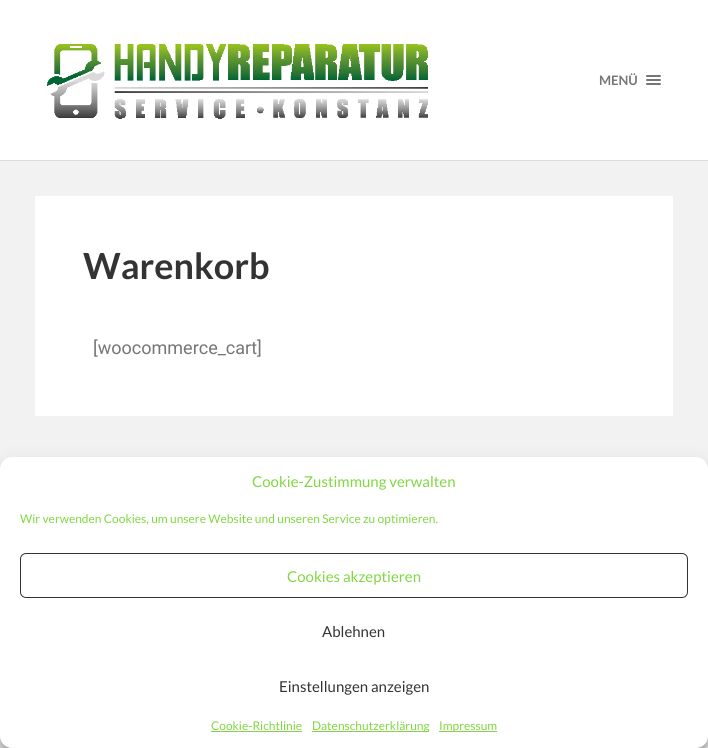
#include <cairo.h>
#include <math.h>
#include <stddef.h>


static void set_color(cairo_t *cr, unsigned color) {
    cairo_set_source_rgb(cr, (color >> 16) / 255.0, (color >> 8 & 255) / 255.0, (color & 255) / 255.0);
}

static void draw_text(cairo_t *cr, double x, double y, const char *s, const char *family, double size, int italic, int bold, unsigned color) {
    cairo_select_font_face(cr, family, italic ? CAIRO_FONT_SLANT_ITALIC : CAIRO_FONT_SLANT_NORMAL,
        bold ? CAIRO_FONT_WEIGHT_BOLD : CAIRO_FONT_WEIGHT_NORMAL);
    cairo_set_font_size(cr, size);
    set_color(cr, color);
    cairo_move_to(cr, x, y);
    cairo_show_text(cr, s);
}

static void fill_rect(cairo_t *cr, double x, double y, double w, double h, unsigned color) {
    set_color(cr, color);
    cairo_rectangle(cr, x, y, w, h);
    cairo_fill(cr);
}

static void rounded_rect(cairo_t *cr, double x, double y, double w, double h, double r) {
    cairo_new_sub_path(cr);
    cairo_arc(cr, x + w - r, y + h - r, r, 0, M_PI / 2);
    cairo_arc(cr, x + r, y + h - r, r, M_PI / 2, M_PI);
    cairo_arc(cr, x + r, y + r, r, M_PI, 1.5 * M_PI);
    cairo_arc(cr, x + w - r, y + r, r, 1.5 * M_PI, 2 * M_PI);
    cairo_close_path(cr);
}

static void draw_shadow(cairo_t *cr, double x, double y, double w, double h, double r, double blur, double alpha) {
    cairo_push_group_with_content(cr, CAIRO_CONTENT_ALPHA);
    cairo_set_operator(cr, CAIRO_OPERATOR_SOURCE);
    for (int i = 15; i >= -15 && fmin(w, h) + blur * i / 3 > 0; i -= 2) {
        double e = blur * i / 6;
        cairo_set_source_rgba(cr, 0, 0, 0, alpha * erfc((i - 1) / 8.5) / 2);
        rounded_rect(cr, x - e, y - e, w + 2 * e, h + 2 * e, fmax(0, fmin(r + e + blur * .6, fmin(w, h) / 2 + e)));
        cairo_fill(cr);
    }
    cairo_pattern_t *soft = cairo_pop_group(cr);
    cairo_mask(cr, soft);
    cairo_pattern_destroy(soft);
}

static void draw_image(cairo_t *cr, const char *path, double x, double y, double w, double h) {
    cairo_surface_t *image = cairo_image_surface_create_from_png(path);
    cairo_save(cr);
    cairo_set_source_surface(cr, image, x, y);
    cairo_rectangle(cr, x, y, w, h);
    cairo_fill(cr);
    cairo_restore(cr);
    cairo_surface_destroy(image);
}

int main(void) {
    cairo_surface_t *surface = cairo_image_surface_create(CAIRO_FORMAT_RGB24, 708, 748);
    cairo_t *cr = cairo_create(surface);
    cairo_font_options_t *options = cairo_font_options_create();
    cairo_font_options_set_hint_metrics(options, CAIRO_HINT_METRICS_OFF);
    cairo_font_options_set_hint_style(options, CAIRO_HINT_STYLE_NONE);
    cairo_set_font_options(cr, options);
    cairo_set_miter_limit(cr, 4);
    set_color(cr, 0xF2F2F2);
    cairo_paint(cr);
    fill_rect(cr, 0, 0, 708, 160, 0xFFFFFF);
    fill_rect(cr, 0, 160, 708, 1, 0xDDDDDD);
    draw_image(cr, "assets/img1.png", 47, 44, 381, 75);
    draw_text(cr, 599, 85, "MENÜ", "Lato", 13, 0, 1, 0x767676);
    rounded_rect(cr, 646, 75, 15, 2, 1);
    cairo_fill(cr);
    rounded_rect(cr, 646, 79, 15, 2, 1);
    cairo_fill(cr);
    rounded_rect(cr, 646, 83, 15, 2, 1);
    cairo_fill(cr);
    fill_rect(cr, 35, 196, 638, 220, 0xFFFFFF);
    draw_text(cr, 83, 279, "Warenkorb", "Lato", 36, 0, 1, 0x333333);
    draw_text(cr, 93, 354, "[woocommerce_cart]", "Roboto", 18, 0, 0, 0x767676);
    set_color(cr, 0x000000);
    draw_shadow(cr, 0, 463, 708, 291, 12, 3, 0.23);
    draw_shadow(cr, 0, 467, 708, 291, 12, 10, 0.19);
    set_color(cr, 0xFFFFFF);
    rounded_rect(cr, 0, 457, 708, 291, 12);
    cairo_fill(cr);
    draw_text(cr, 252, 487, "Cookie-Zustimmung verwalten", "Lato", 15, 0, 0, 0x81D742);
    draw_text(cr, 20, 523, "Wir verwenden Cookies, um unsere Website und unseren Service zu optimieren.", "Lato", 12, 0, 0, 0x81D742);
    rounded_rect(cr, 20.5, 553.5, 667, 44, 5.5);
    set_color(cr, 0x333333);
    cairo_set_line_width(cr, 1);
    cairo_stroke(cr);
    draw_text(cr, 287, 582, "Cookies akzeptieren", "Lato", 15, 0, 0, 0x81D742);
    draw_text(cr, 322, 637, "Ablehnen", "Lato", 15, 0, 0, 0x333333);
    draw_text(cr, 279, 692, "Einstellungen anzeigen", "Lato", 15, 0, 0, 0x333333);
    draw_text(cr, 211, 730, "Cookie-Richtlinie", "Lato", 12, 0, 0, 0x81D742);
    fill_rect(cr, 211, 731, 91, 1, 0x81D742);
    fill_rect(cr, 312, 731, 117, 1, 0x81D742);
    draw_text(cr, 312, 730, "Datenschutzerklärung", "Lato", 12, 0, 0, 0x81D742);
    fill_rect(cr, 439, 731, 58, 1, 0x81D742);
    draw_text(cr, 439, 730, "Impressum", "Lato", 12, 0, 0, 0x81D742);
    cairo_surface_write_to_png(surface, "output.png");
    cairo_font_options_destroy(options);
    cairo_destroy(cr);
    cairo_surface_destroy(surface);
    return 0;
}
